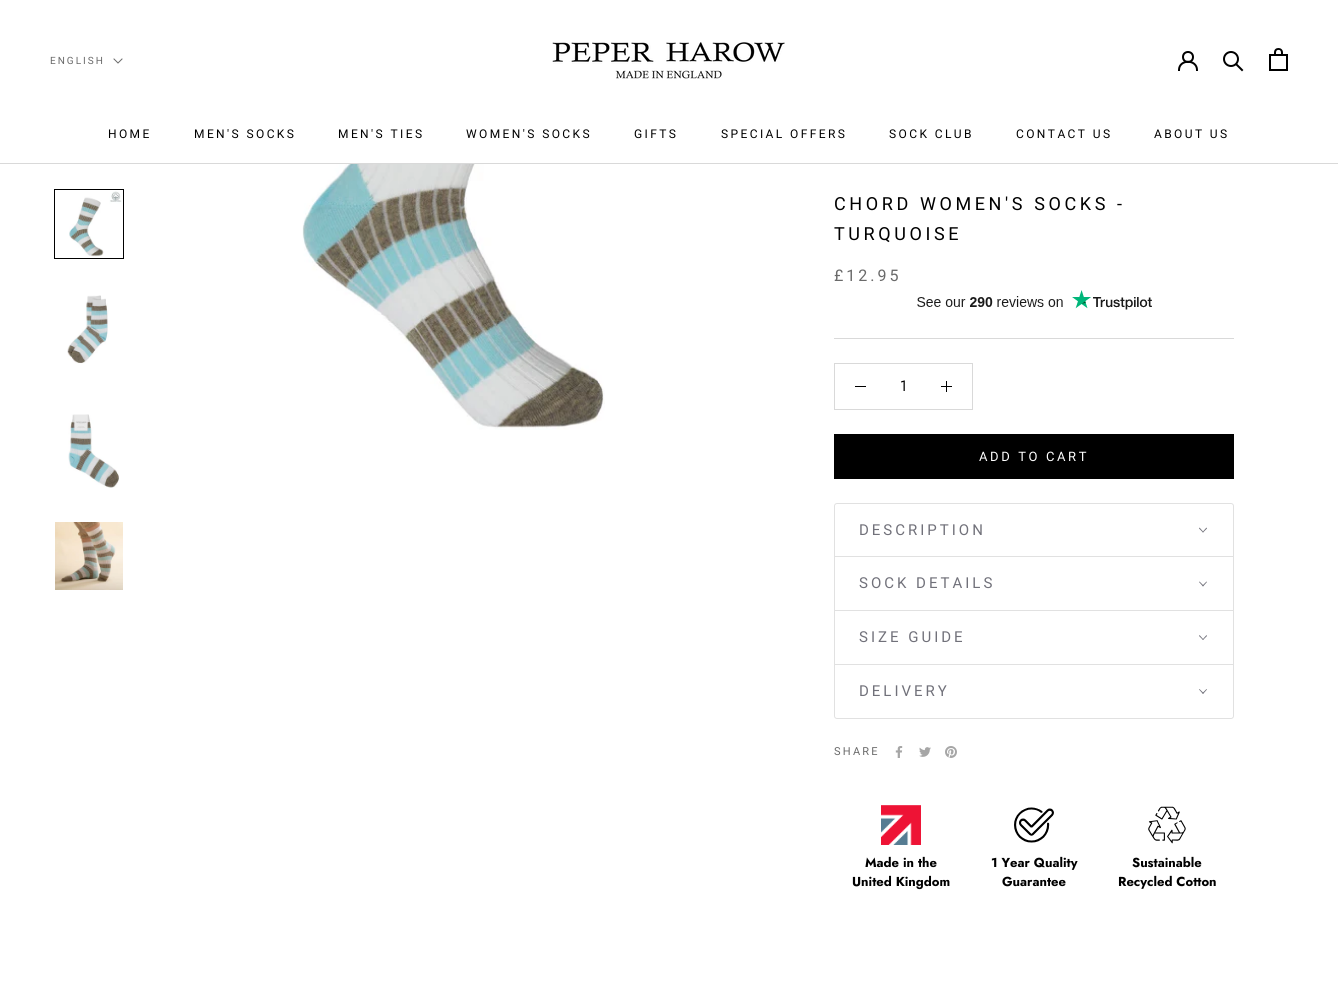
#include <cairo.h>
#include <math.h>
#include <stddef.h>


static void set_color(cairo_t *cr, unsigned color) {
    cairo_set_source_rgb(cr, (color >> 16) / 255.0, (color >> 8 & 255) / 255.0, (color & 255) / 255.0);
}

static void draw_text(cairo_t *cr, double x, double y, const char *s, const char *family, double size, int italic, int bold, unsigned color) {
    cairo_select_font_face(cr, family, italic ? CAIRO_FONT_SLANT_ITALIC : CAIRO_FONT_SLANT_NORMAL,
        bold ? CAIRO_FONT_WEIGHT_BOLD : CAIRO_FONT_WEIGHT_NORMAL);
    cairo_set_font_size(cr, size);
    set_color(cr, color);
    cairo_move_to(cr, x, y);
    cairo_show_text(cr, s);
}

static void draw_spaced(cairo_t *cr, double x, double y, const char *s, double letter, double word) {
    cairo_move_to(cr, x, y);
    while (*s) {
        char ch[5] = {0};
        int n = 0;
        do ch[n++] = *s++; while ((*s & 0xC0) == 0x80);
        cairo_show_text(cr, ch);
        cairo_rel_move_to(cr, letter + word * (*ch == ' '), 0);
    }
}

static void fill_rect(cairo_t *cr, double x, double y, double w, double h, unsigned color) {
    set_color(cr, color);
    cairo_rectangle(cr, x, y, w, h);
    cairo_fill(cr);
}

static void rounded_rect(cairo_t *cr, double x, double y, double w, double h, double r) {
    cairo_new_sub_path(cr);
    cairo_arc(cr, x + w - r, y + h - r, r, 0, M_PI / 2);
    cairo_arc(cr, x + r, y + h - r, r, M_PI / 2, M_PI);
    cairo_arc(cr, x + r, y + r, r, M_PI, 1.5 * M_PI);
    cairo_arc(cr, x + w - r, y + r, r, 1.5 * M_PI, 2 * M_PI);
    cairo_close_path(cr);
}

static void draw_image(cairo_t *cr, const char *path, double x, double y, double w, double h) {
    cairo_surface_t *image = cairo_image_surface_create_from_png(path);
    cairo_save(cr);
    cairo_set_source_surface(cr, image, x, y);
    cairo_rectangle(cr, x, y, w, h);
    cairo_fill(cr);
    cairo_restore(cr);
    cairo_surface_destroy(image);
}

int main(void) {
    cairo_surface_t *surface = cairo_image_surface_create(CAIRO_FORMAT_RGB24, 1338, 994);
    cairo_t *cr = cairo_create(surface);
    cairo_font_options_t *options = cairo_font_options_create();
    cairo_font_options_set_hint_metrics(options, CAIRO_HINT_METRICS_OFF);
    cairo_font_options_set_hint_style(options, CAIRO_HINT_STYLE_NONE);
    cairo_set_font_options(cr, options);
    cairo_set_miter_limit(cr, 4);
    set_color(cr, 0xFFFFFF);
    cairo_paint(cr);
    fill_rect(cr, 0, 163, 1338, 1, 0xD9D9D9);
    draw_image(cr, "assets/img1.png", 552, 42, 233, 37);
    cairo_new_path(cr);
    cairo_move_to(cr, 1179, 70);
    cairo_curve_to(cr, 1179, 59, 1197, 59, 1197, 70);
    set_color(cr, 0x000000);
    cairo_set_line_cap(cr, CAIRO_LINE_CAP_SQUARE);
    cairo_stroke(cr);
    cairo_arc(cr, 1188, 57, 5, 0, 2 * M_PI);
    cairo_set_line_cap(cr, CAIRO_LINE_CAP_BUTT);
    cairo_stroke(cr);
    cairo_new_path(cr);
    cairo_move_to(cr, 1242, 70);
    cairo_line_to(cr, 1236.5, 64.5);
    cairo_set_line_cap(cr, CAIRO_LINE_CAP_SQUARE);
    cairo_stroke(cr);
    cairo_arc(cr, 1231, 59, 7, 0, 2 * M_PI);
    cairo_set_line_cap(cr, CAIRO_LINE_CAP_BUTT);
    cairo_stroke(cr);
    draw_image(cr, "assets/img2.png", 1269, 48, 19, 23);
    cairo_select_font_face(cr, "Roboto", CAIRO_FONT_SLANT_NORMAL, CAIRO_FONT_WEIGHT_NORMAL);
    cairo_set_font_size(cr, 10);
    set_color(cr, 0x6A6A6A);
    draw_spaced(cr, 50, 64, "ENGLISH", 2, 0);
    cairo_new_path(cr);
    cairo_move_to(cr, 122, 59);
    cairo_line_to(cr, 118, 63);
    cairo_line_to(cr, 114, 59);
    cairo_set_line_width(cr, 1);
    cairo_set_line_cap(cr, CAIRO_LINE_CAP_SQUARE);
    cairo_stroke(cr);
    cairo_set_font_size(cr, 12);
    set_color(cr, 0x000000);
    draw_spaced(cr, 108, 138, "HOME", 2.4, 0);
    draw_spaced(cr, 194, 138, "MEN'S SOCKS", 2.4, 0);
    draw_spaced(cr, 338, 138, "MEN'S TIES", 2.4, 0);
    draw_spaced(cr, 466, 138, "WOMEN'S SOCKS", 2.4, 0);
    draw_spaced(cr, 634, 138, "GIFTS", 2.4, 0);
    draw_spaced(cr, 721, 138, "SPECIAL OFFERS", 2.4, 0);
    draw_spaced(cr, 889, 138, "SOCK CLUB", 2.4, 0);
    draw_spaced(cr, 1016, 138, "CONTACT US", 2.4, 0);
    draw_spaced(cr, 1154, 138, "ABOUT US", 2.4, 0);
    cairo_rectangle(cr, 54.5, 189.5, 69, 69);
    cairo_set_line_cap(cr, CAIRO_LINE_CAP_BUTT);
    cairo_stroke(cr);
    draw_image(cr, "assets/img3.png", 69, 191, 53, 66);
    draw_image(cr, "assets/img4.png", 67, 295, 42, 69);
    draw_image(cr, "assets/img5.png", 68, 414, 51, 74);
    draw_image(cr, "assets/img6.png", 55, 522, 68, 68);
    draw_image(cr, "assets/img7.png", 302, 164, 303, 266);
    fill_rect(cr, 834, 338, 400, 1, 0xD9D9D9);
    cairo_set_font_size(cr, 18);
    set_color(cr, 0x000000);
    draw_spaced(cr, 834, 210, "CHORD WOMEN'S SOCKS -", 3.6, 0);
    draw_spaced(cr, 834, 240, "TURQUOISE", 3.6, 0);
    cairo_set_font_size(cr, 16);
    set_color(cr, 0x6A6A6A);
    draw_spaced(cr, 834, 281, "£12.95", 3, 0);
    draw_image(cr, "assets/img8.png", 917, 290, 235, 20);
    cairo_rectangle(cr, 834.5, 363.5, 138, 46);
    set_color(cr, 0xD9D9D9);
    cairo_stroke(cr);
    fill_rect(cr, 855, 386, 11, 1, 0x000000);
    draw_text(cr, 900, 391, "1", "Jost", 15, 0, 0, 0x000000);
    fill_rect(cr, 946, 381, 1, 11, 0x000000);
    fill_rect(cr, 941, 386, 11, 1, 0x000000);
    cairo_rectangle(cr, 834.5, 434.5, 399, 44);
    cairo_stroke(cr);
    fill_rect(cr, 835, 435, 398, 43, 0x000000);
    cairo_select_font_face(cr, "Roboto", CAIRO_FONT_SLANT_NORMAL, CAIRO_FONT_WEIGHT_NORMAL);
    cairo_set_font_size(cr, 13);
    set_color(cr, 0xFFFFFF);
    draw_spaced(cr, 979, 461, "ADD TO CART", 2.6, 0);
    rounded_rect(cr, 834.5, 503.5, 399, 215, 2.5);
    set_color(cr, 0xE1E1E1);
    cairo_stroke(cr);
    cairo_set_font_size(cr, 15);
    set_color(cr, 0x71717A);
    draw_spaced(cr, 859, 535, "DESCRIPTION", 3, 0);
    cairo_new_path(cr);
    cairo_move_to(cr, 1206.5, 527.5);
    cairo_line_to(cr, 1207, 528.5);
    cairo_line_to(cr, 1203, 532.5);
    cairo_line_to(cr, 1202.5, 532);
    cairo_close_path(cr);
    cairo_fill(cr);
    cairo_new_path(cr);
    cairo_move_to(cr, 1199.5, 527.5);
    cairo_line_to(cr, 1203.5, 532);
    cairo_line_to(cr, 1203, 532.5);
    cairo_line_to(cr, 1199, 528.5);
    cairo_close_path(cr);
    cairo_fill(cr);
    fill_rect(cr, 835, 556, 398, 1, 0xE1E1E1);
    set_color(cr, 0x71717A);
    draw_spaced(cr, 859, 588, "SOCK DETAILS", 3, 0);
    cairo_new_path(cr);
    cairo_move_to(cr, 1206.5, 581.5);
    cairo_line_to(cr, 1207, 582);
    cairo_line_to(cr, 1203, 586.5);
    cairo_line_to(cr, 1202.5, 585.5);
    cairo_close_path(cr);
    cairo_fill(cr);
    cairo_new_path(cr);
    cairo_move_to(cr, 1199.5, 581.5);
    cairo_line_to(cr, 1203.5, 585.5);
    cairo_line_to(cr, 1203, 586.5);
    cairo_line_to(cr, 1199, 582);
    cairo_close_path(cr);
    cairo_fill(cr);
    fill_rect(cr, 835, 610, 398, 1, 0xE1E1E1);
    set_color(cr, 0x71717A);
    draw_spaced(cr, 859, 642, "SIZE GUIDE", 3, 0);
    cairo_new_path(cr);
    cairo_move_to(cr, 1206.5, 635);
    cairo_line_to(cr, 1207, 636);
    cairo_line_to(cr, 1203, 640);
    cairo_line_to(cr, 1202.5, 639.5);
    cairo_close_path(cr);
    cairo_fill(cr);
    cairo_new_path(cr);
    cairo_move_to(cr, 1199.5, 635);
    cairo_line_to(cr, 1203.5, 639.5);
    cairo_line_to(cr, 1203, 640);
    cairo_line_to(cr, 1199, 636);
    cairo_close_path(cr);
    cairo_fill(cr);
    fill_rect(cr, 835, 664, 398, 1, 0xE1E1E1);
    set_color(cr, 0x71717A);
    draw_spaced(cr, 859, 696, "DELIVERY", 3, 0);
    cairo_new_path(cr);
    cairo_move_to(cr, 1206.5, 689);
    cairo_line_to(cr, 1207, 689.5);
    cairo_line_to(cr, 1203, 694);
    cairo_line_to(cr, 1202.5, 693);
    cairo_close_path(cr);
    cairo_fill(cr);
    cairo_new_path(cr);
    cairo_move_to(cr, 1199.5, 689);
    cairo_line_to(cr, 1203.5, 693);
    cairo_line_to(cr, 1203, 694);
    cairo_line_to(cr, 1199, 689.5);
    cairo_close_path(cr);
    cairo_fill(cr);
    cairo_set_font_size(cr, 11);
    set_color(cr, 0x6A6A6A);
    draw_spaced(cr, 834, 755, "SHARE", 2.25, 0);
    draw_image(cr, "assets/img9.png", 895, 746, 8, 12);
    draw_image(cr, "assets/img10.png", 919, 747, 12, 10);
    draw_image(cr, "assets/img11.png", 945, 746, 12, 12);
    draw_image(cr, "assets/img12.png", 881, 805, 40, 40);
    draw_text(cr, 865, 867, "Made in the", "Jost", 13, 0, 1, 0x000000);
    draw_text(cr, 852, 886, "United Kingdom", "Jost", 13, 0, 1, 0x000000);
    draw_image(cr, "assets/img13.png", 1014, 807, 40, 36);
    draw_text(cr, 991, 867, "1 Year Quality", "Jost", 13, 0, 1, 0x000000);
    draw_text(cr, 1002, 886, "Guarantee", "Jost", 13, 0, 1, 0x000000);
    draw_image(cr, "assets/img14.png", 1148, 806, 38, 38);
    draw_text(cr, 1132, 867, "Sustainable", "Jost", 13, 0, 1, 0x000000);
    draw_text(cr, 1118, 886, "Recycled Cotton", "Jost", 13, 0, 1, 0x000000);
    cairo_surface_write_to_png(surface, "output.png");
    cairo_font_options_destroy(options);
    cairo_destroy(cr);
    cairo_surface_destroy(surface);
    return 0;
}
